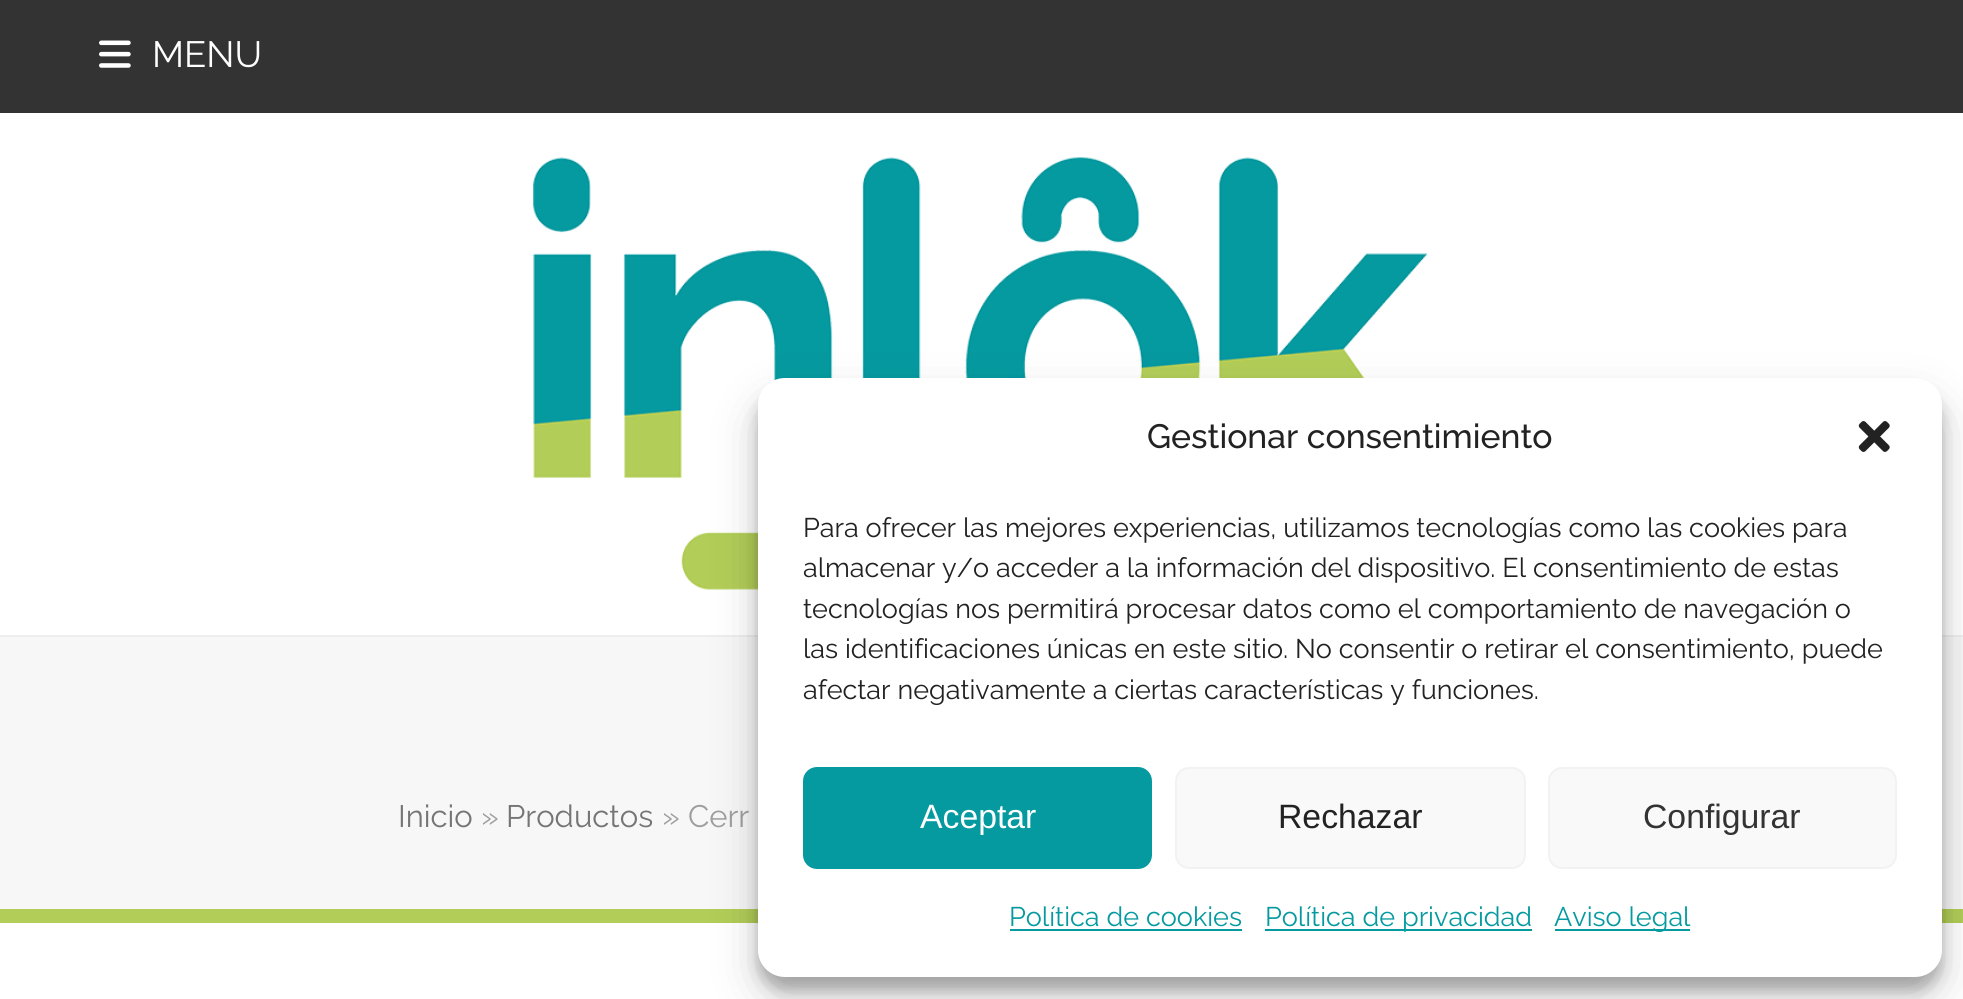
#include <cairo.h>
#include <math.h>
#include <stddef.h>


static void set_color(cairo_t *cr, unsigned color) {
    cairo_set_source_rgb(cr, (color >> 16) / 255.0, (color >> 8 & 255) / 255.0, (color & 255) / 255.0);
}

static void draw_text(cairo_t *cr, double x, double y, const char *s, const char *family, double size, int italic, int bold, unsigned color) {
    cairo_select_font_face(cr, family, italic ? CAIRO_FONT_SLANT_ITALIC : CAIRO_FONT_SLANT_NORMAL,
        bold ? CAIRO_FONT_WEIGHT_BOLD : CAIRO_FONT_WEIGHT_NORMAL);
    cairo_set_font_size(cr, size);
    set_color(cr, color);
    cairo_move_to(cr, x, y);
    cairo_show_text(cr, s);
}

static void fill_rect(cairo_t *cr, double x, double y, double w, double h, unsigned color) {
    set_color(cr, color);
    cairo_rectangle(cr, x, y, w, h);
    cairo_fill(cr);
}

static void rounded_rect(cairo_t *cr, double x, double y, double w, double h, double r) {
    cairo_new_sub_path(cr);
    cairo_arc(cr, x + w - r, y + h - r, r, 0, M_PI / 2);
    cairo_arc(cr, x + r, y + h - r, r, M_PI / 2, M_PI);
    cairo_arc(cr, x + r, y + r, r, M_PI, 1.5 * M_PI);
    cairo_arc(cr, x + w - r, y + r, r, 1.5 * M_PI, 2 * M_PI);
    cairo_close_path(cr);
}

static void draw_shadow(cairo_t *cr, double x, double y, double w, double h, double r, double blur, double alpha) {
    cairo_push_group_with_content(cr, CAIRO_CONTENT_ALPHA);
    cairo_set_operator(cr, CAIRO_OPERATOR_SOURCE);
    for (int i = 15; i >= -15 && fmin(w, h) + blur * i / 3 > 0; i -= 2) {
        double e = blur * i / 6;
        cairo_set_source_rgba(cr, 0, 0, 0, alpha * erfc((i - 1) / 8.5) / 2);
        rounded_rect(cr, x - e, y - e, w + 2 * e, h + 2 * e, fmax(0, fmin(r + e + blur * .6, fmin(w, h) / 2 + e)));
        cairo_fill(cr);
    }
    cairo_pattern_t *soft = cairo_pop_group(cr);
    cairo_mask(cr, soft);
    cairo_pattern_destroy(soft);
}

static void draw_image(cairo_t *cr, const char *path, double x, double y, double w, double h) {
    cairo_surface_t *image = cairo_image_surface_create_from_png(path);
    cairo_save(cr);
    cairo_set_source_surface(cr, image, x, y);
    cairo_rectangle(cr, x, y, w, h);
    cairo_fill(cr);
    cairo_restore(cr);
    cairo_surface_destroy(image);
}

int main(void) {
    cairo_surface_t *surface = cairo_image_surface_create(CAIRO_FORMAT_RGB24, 1963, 999);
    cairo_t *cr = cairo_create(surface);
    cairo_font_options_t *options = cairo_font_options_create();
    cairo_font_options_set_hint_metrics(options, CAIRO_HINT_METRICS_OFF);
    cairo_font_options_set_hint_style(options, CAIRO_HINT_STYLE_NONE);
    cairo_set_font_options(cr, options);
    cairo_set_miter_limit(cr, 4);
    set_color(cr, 0xFFFFFF);
    cairo_paint(cr);
    fill_rect(cr, 0, 0, 1963, 113, 0x333333);
    draw_image(cr, "assets/img1.png", 99, 40, 32, 28);
    draw_text(cr, 152, 67, "MENU", "Raleway", 36.5, 0, 0, 0xFFFFFF);
    draw_image(cr, "assets/img2.png", 533, 157, 895, 433);
    fill_rect(cr, 0, 637, 1963, 272, 0xF7F7F7);
    fill_rect(cr, 0, 635, 1963, 2, 0xEEEEEE);
    fill_rect(cr, 0, 909, 1963, 14, 0xB2CD58);
    draw_text(cr, 398, 827, "Inicio", "Raleway", 31, 0, 0, 0x757575);
    draw_text(cr, 481, 827, "»", "Raleway", 31, 0, 0, 0x9E9E9E);
    draw_text(cr, 506, 827, "Productos", "Raleway", 31, 0, 0, 0x757575);
    draw_text(cr, 662, 827, "»", "Raleway", 31, 0, 0, 0x9E9E9E);
    draw_text(cr, 688, 827, "Cerr", "Raleway", 31, 0, 0, 0x9E9E9E);
    set_color(cr, 0x000000);
    draw_shadow(cr, 758, 392, 1184, 598, 27, 7, 0.23);
    draw_shadow(cr, 758, 401, 1184, 598, 27, 22.5, 0.19);
    set_color(cr, 0xFFFFFF);
    rounded_rect(cr, 758, 378, 1184, 599, 27);
    cairo_fill(cr);
    draw_text(cr, 1147, 448, "Gestionar consentimiento", "Raleway Medium", 33.75, 0, 0, 0x222222);
    draw_image(cr, "assets/img3.png", 1858, 421, 32, 31);
    draw_text(cr, 803, 537, "Para ofrecer las mejores experiencias, utilizamos tecnologías como las cookies para", "Raleway", 27, 0, 0, 0x222222);
    draw_text(cr, 803, 577, "almacenar y/o acceder a la información del dispositivo. El consentimiento de estas", "Raleway", 27, 0, 0, 0x222222);
    draw_text(cr, 803, 618, "tecnologías nos permitirá procesar datos como el comportamiento de navegación o", "Raleway", 27, 0, 0, 0x222222);
    draw_text(cr, 803, 658, "las identificaciones únicas en este sitio. No consentir o retirar el consentimiento, puede", "Raleway", 27, 0, 0, 0x222222);
    draw_text(cr, 803, 699, "afectar negativamente a ciertas características y funciones.", "Raleway", 27, 0, 0, 0x222222);
    set_color(cr, 0x059AA0);
    rounded_rect(cr, 804, 768, 347, 100, 13);
    cairo_fill_preserve(cr);
    cairo_stroke(cr);
    draw_text(cr, 920, 828, "Aceptar", "Liberation Sans", 33.75, 0, 0, 0xFFFFFF);
    set_color(cr, 0xF9F9F9);
    rounded_rect(cr, 1176, 768, 349, 100, 13);
    cairo_fill_preserve(cr);
    set_color(cr, 0xF2F2F2);
    cairo_stroke(cr);
    draw_text(cr, 1278, 828, "Rechazar", "Liberation Sans", 33.75, 0, 0, 0x222222);
    set_color(cr, 0xF9F9F9);
    rounded_rect(cr, 1549, 768, 347, 100, 13);
    cairo_fill_preserve(cr);
    set_color(cr, 0xF2F2F2);
    cairo_stroke(cr);
    draw_text(cr, 1643, 828, "Configurar", "Liberation Sans", 33.75, 0, 0, 0x333333);
    draw_text(cr, 1009, 926, "Política de cookies", "Raleway", 27, 0, 0, 0x059AA0);
    fill_rect(cr, 1010, 929, 232, 2, 0x059AA0);
    fill_rect(cr, 1265, 929, 267, 2, 0x059AA0);
    draw_text(cr, 1265, 926, "Política de privacidad", "Raleway", 27, 0, 0, 0x059AA0);
    fill_rect(cr, 1555, 929, 135, 2, 0x059AA0);
    draw_text(cr, 1554, 926, "Aviso legal", "Raleway", 27, 0, 0, 0x059AA0);
    cairo_surface_write_to_png(surface, "output.png");
    cairo_font_options_destroy(options);
    cairo_destroy(cr);
    cairo_surface_destroy(surface);
    return 0;
}
